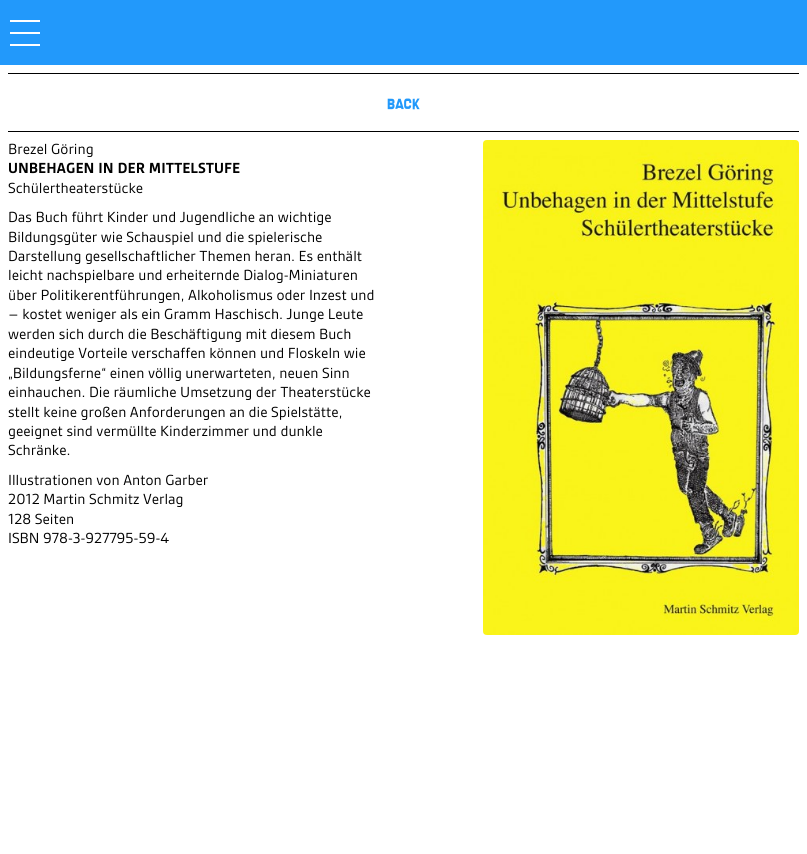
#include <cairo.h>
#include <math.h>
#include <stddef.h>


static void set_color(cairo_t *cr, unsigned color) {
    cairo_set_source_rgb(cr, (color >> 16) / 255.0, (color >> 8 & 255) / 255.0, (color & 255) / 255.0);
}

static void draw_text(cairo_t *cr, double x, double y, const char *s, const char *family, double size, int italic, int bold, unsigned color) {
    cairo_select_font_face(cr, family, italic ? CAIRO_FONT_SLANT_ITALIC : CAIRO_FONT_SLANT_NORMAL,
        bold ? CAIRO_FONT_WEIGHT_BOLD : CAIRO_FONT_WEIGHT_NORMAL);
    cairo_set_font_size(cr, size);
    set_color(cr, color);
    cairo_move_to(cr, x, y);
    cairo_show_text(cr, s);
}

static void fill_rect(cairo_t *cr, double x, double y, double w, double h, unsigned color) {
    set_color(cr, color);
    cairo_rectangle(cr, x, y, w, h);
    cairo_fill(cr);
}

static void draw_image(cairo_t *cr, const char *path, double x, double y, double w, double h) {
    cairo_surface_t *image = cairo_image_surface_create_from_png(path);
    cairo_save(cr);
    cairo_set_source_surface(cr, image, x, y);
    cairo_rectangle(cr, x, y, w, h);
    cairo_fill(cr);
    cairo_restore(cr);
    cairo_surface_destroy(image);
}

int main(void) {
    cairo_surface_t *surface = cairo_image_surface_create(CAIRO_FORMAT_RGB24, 807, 854);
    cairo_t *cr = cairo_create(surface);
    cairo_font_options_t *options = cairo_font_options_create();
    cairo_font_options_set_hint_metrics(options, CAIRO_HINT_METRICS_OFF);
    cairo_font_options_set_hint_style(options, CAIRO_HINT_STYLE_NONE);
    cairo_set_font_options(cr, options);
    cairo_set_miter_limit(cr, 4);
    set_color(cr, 0xFFFFFF);
    cairo_paint(cr);
    fill_rect(cr, 0, 0, 807, 65, 0x2299FB);
    fill_rect(cr, 10, 20, 30, 2, 0xFFFFFF);
    fill_rect(cr, 10, 32, 30, 2, 0xFFFFFF);
    fill_rect(cr, 10, 44, 30, 2, 0xFFFFFF);
    fill_rect(cr, 8, 73, 791, 1, 0x000000);
    fill_rect(cr, 8, 131, 791, 1, 0x000000);
    draw_text(cr, 387, 109, "BACK", "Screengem", 14, 0, 0, 0x2299FB);
    draw_text(cr, 8, 154, "Brezel Göring", "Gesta", 14, 0, 0, 0x000000);
    draw_text(cr, 8, 173, "UNBEHAGEN IN DER MITTELSTUFE", "Gesta", 14, 0, 1, 0x000000);
    draw_text(cr, 8, 193, "Schülertheaterstücke", "Gesta", 14, 0, 0, 0x000000);
    draw_image(cr, "assets/img1.png", 483, 140, 316, 495);
    draw_text(cr, 8, 222, "Das Buch führt Kinder und Jugendliche an wichtige", "Gesta", 14, 0, 0, 0x000000);
    draw_text(cr, 8, 242, "Bildungsgüter wie Schauspiel und die spielerische", "Gesta", 14, 0, 0, 0x000000);
    draw_text(cr, 8, 261, "Darstellung gesellschaftlicher Themen heran. Es enthält", "Gesta", 14, 0, 0, 0x000000);
    draw_text(cr, 8, 280, "leicht nachspielbare und erheiternde Dialog-Miniaturen", "Gesta", 14, 0, 0, 0x000000);
    draw_text(cr, 8, 300, "über Politikerentführungen, Alkoholismus oder Inzest und", "Gesta", 14, 0, 0, 0x000000);
    draw_text(cr, 8, 319, "– kostet weniger als ein Gramm Haschisch. Junge Leute", "Gesta", 14, 0, 0, 0x000000);
    draw_text(cr, 8, 339, "werden sich durch die Beschäftigung mit diesem Buch", "Gesta", 14, 0, 0, 0x000000);
    draw_text(cr, 8, 358, "eindeutige Vorteile verschaffen können und Floskeln wie", "Gesta", 14, 0, 0, 0x000000);
    draw_text(cr, 8, 378, "„Bildungsferne“ einen völlig unerwarteten, neuen Sinn", "Gesta", 14, 0, 0, 0x000000);
    draw_text(cr, 8, 397, "einhauchen. Die räumliche Umsetzung der Theaterstücke", "Gesta", 14, 0, 0, 0x000000);
    draw_text(cr, 8, 417, "stellt keine großen Anforderungen an die Spielstätte,", "Gesta", 14, 0, 0, 0x000000);
    draw_text(cr, 8, 436, "geeignet sind vermüllte Kinderzimmer und dunkle", "Gesta", 14, 0, 0, 0x000000);
    draw_text(cr, 8, 455, "Schränke.", "Gesta", 14, 0, 0, 0x000000);
    draw_text(cr, 8, 485, "Illustrationen von Anton Garber", "Gesta", 14, 0, 0, 0x000000);
    draw_text(cr, 8, 504, "2012 Martin Schmitz Verlag", "Gesta", 14, 0, 0, 0x000000);
    draw_text(cr, 8, 524, "128 Seiten", "Gesta", 14, 0, 0, 0x000000);
    draw_text(cr, 8, 543, "ISBN 978-3-927795-59-4", "Gesta", 14, 0, 0, 0x000000);
    cairo_surface_write_to_png(surface, "output.png");
    cairo_font_options_destroy(options);
    cairo_destroy(cr);
    cairo_surface_destroy(surface);
    return 0;
}
